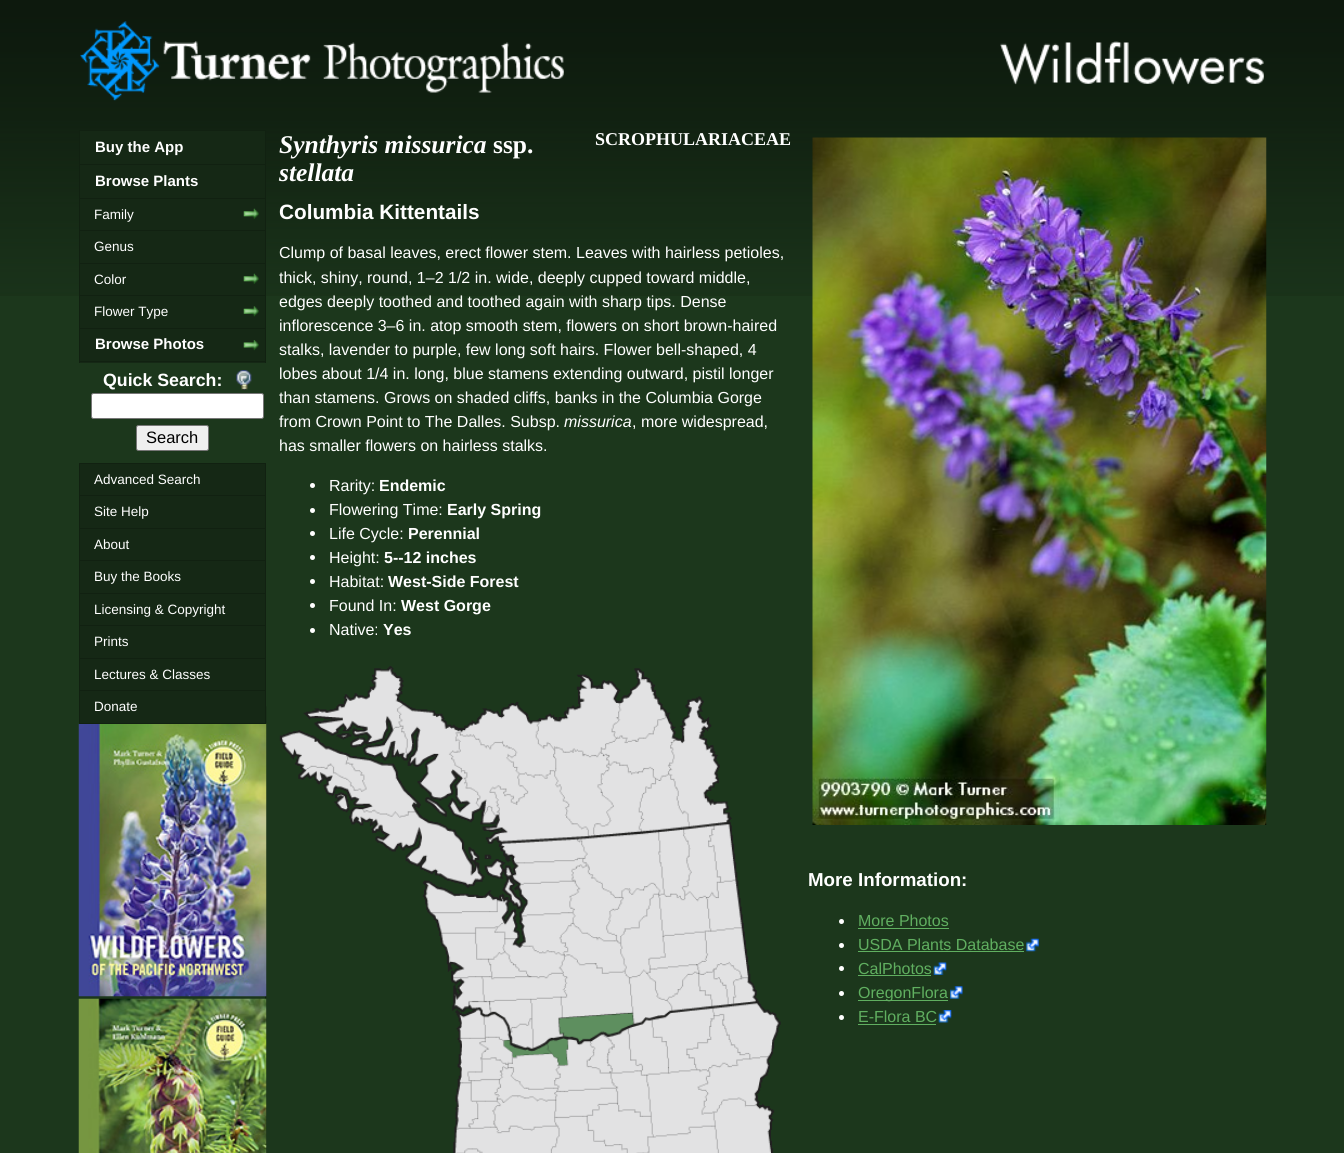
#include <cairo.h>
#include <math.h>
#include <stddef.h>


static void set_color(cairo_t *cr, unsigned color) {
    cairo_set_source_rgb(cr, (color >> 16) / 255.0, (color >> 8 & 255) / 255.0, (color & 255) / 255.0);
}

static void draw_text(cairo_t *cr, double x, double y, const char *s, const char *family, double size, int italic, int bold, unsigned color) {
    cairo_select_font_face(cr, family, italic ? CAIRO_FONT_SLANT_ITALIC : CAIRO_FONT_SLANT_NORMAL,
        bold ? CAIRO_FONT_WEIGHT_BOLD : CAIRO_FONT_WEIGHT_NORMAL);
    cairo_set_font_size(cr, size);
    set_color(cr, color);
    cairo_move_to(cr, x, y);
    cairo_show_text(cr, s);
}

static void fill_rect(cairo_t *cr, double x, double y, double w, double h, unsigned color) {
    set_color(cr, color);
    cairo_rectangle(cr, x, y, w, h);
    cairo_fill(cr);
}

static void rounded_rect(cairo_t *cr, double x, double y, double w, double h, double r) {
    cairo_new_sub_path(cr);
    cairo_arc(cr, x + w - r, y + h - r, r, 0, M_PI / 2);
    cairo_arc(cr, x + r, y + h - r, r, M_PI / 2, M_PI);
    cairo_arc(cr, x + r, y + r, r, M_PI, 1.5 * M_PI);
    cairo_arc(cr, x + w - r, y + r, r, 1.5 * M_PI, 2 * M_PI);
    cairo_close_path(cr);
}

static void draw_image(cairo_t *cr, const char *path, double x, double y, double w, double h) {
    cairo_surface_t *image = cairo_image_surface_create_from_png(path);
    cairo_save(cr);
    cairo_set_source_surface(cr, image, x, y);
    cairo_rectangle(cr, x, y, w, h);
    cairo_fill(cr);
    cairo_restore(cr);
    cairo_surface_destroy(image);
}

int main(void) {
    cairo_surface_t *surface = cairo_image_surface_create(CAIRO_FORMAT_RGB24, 1344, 1153);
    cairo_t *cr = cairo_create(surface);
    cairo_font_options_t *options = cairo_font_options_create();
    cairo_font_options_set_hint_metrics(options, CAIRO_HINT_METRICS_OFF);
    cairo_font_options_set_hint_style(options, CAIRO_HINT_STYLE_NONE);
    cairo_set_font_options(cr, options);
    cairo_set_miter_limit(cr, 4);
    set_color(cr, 0x1C371C);
    cairo_paint(cr);
    draw_image(cr, "assets/img1.png", 0, 0, 1344, 296);
    draw_image(cr, "assets/img2.png", 80, 21, 484, 80);
    draw_image(cr, "assets/img3.png", 1000, 41, 264, 44);
    draw_image(cr, "assets/img4.png", 265, 706, 2, 447);
    fill_rect(cr, 80, 131, 185, 232, 0x152815);
    cairo_rectangle(cr, 79.5, 130.5, 186, 34);
    set_color(cr, 0x112111);
    cairo_set_line_width(cr, 1);
    cairo_stroke(cr);
    draw_text(cr, 95, 152, "Buy the App", "Liberation Sans", 15, 0, 1, 0xFFFFFF);
    fill_rect(cr, 265, 165, 1, 198, 0x112111);
    fill_rect(cr, 79, 198, 187, 1, 0x112111);
    fill_rect(cr, 79, 165, 1, 34, 0x112111);
    draw_text(cr, 95, 186, "Browse Plants", "Liberation Sans", 15, 0, 1, 0xFFFFFF);
    fill_rect(cr, 79, 230, 187, 1, 0x112111);
    fill_rect(cr, 79, 199, 1, 32, 0x112111);
    draw_image(cr, "assets/img5.png", 243, 208, 16, 11);
    draw_text(cr, 94, 219, "Family", "Liberation Sans", 13.5, 0, 0, 0xFFFFFF);
    fill_rect(cr, 79, 263, 187, 1, 0x112111);
    fill_rect(cr, 79, 231, 1, 33, 0x112111);
    draw_text(cr, 94, 251, "Genus", "Liberation Sans", 13.5, 0, 0, 0xFFFFFF);
    fill_rect(cr, 79, 295, 187, 1, 0x112111);
    fill_rect(cr, 79, 264, 1, 32, 0x112111);
    draw_image(cr, "assets/img5.png", 243, 273, 16, 11);
    draw_text(cr, 94, 284, "Color", "Liberation Sans", 13.5, 0, 0, 0xFFFFFF);
    fill_rect(cr, 79, 328, 187, 1, 0x112111);
    fill_rect(cr, 79, 296, 1, 33, 0x112111);
    draw_image(cr, "assets/img6.png", 243, 306, 16, 11);
    draw_text(cr, 94, 316, "Flower Type", "Liberation Sans", 13.5, 0, 0, 0xFFFFFF);
    fill_rect(cr, 79, 361, 187, 1, 0x112111);
    fill_rect(cr, 79, 329, 1, 34, 0x112111);
    draw_image(cr, "assets/img7.png", 243, 340, 16, 11);
    draw_text(cr, 95, 349, "Browse Photos", "Liberation Sans", 15, 0, 1, 0xFFFFFF);
    draw_image(cr, "assets/img8.png", 236, 370, 16, 20);
    draw_text(cr, 103, 386, "Quick Search:", "Liberation Sans", 17.75, 0, 1, 0xFFFFFF);
    rounded_rect(cr, 91.5, 393.5, 172, 25, 2);
    cairo_fill_preserve(cr);
    set_color(cr, 0x767676);
    cairo_stroke(cr);
    set_color(cr, 0xEFEFEF);
    rounded_rect(cr, 136.5, 425.5, 72, 25, 2);
    cairo_fill_preserve(cr);
    set_color(cr, 0x767676);
    cairo_stroke(cr);
    draw_text(cr, 146, 443, "Search", "Liberation Sans", 16.5, 0, 0, 0x000000);
    fill_rect(cr, 80, 464, 185, 259, 0x152815);
    cairo_rectangle(cr, 79.5, 463.5, 186, 32);
    set_color(cr, 0x112111);
    cairo_stroke(cr);
    draw_text(cr, 94, 484, "Advanced Search", "Liberation Sans", 13.5, 0, 0, 0xFFFFFF);
    draw_image(cr, "assets/img9.png", 78, 723, 189, 274);
    fill_rect(cr, 265, 496, 1, 228, 0x112111);
    fill_rect(cr, 79, 528, 187, 1, 0x112111);
    fill_rect(cr, 79, 496, 1, 33, 0x112111);
    draw_text(cr, 94, 516, "Site Help", "Liberation Sans", 13.5, 0, 0, 0xFFFFFF);
    fill_rect(cr, 79, 560, 187, 1, 0x112111);
    fill_rect(cr, 79, 529, 1, 32, 0x112111);
    draw_text(cr, 94, 549, "About", "Liberation Sans", 13.5, 0, 0, 0xFFFFFF);
    fill_rect(cr, 79, 593, 187, 1, 0x112111);
    fill_rect(cr, 79, 561, 1, 33, 0x112111);
    draw_text(cr, 94, 581, "Buy the Books", "Liberation Sans", 13.5, 0, 0, 0xFFFFFF);
    fill_rect(cr, 79, 625, 187, 1, 0x112111);
    fill_rect(cr, 79, 594, 1, 32, 0x112111);
    draw_text(cr, 94, 614, "Licensing & Copyright", "Liberation Sans", 13.5, 0, 0, 0xFFFFFF);
    fill_rect(cr, 79, 658, 187, 1, 0x112111);
    fill_rect(cr, 79, 626, 1, 33, 0x112111);
    draw_text(cr, 94, 646, "Prints", "Liberation Sans", 13.5, 0, 0, 0xFFFFFF);
    fill_rect(cr, 79, 690, 187, 1, 0x112111);
    fill_rect(cr, 79, 659, 1, 32, 0x112111);
    draw_text(cr, 94, 679, "Lectures & Classes", "Liberation Sans", 13.5, 0, 0, 0xFFFFFF);
    fill_rect(cr, 79, 723, 187, 1, 0x112111);
    fill_rect(cr, 79, 691, 1, 33, 0x112111);
    draw_text(cr, 94, 711, "Donate", "Liberation Sans", 13.5, 0, 0, 0xFFFFFF);
    draw_image(cr, "assets/img10.png", 78, 998, 189, 155);
    draw_text(cr, 279, 153, "Synthyris missurica", "Liberation Serif", 25.5, 1, 1, 0xFFFFFF);
    draw_text(cr, 493, 153, "ssp.", "Liberation Serif", 25.5, 0, 1, 0xFFFFFF);
    draw_text(cr, 595, 145, "SCROPHULARIACEAE", "Liberation Serif", 18, 0, 1, 0xFFFFFF);
    draw_text(cr, 279, 181, "stellata", "Liberation Serif", 25.5, 1, 1, 0xFFFFFF);
    draw_image(cr, "assets/img11.png", 812, 137, 455, 688);
    draw_text(cr, 279, 219, "Columbia Kittentails", "Liberation Sans", 20.75, 0, 1, 0xFFFFFF);
    draw_text(cr, 279, 258, "Clump of basal leaves, erect flower stem. Leaves with hairless petioles,", "Liberation Sans", 16, 0, 0, 0xFFFFFF);
    draw_text(cr, 279, 283, "thick, shiny, round, 1–2 1/2 in. wide, deeply cupped toward middle,", "Liberation Sans", 16, 0, 0, 0xFFFFFF);
    draw_text(cr, 279, 307, "edges deeply toothed and toothed again with sharp tips. Dense", "Liberation Sans", 16, 0, 0, 0xFFFFFF);
    draw_text(cr, 279, 331, "inflorescence 3–6 in. atop smooth stem, flowers on short brown-haired", "Liberation Sans", 16, 0, 0, 0xFFFFFF);
    draw_text(cr, 279, 355, "stalks, lavender to purple, few long soft hairs. Flower bell-shaped, 4", "Liberation Sans", 16, 0, 0, 0xFFFFFF);
    draw_text(cr, 279, 379, "lobes about 1/4 in. long, blue stamens extending outward, pistil longer", "Liberation Sans", 16, 0, 0, 0xFFFFFF);
    draw_text(cr, 279, 403, "than stamens. Grows on shaded cliffs, banks in the Columbia Gorge", "Liberation Sans", 16, 0, 0, 0xFFFFFF);
    draw_text(cr, 279, 427, "from Crown Point to The Dalles. Subsp.", "Liberation Sans", 16, 0, 0, 0xFFFFFF);
    draw_text(cr, 564, 427, "missurica", "Liberation Sans", 16, 1, 0, 0xFFFFFF);
    draw_text(cr, 632, 427, ", more widespread,", "Liberation Sans", 16, 0, 0, 0xFFFFFF);
    draw_text(cr, 279, 451, "has smaller flowers on hairless stalks.", "Liberation Sans", 16, 0, 0, 0xFFFFFF);
    cairo_new_path(cr);
    cairo_arc(cr, 312.5, 485.5, 2.5, 0, 2 * M_PI);
    cairo_fill(cr);
    draw_text(cr, 329, 491, "Rarity:", "Liberation Sans", 16, 0, 0, 0xFFFFFF);
    draw_text(cr, 379, 491, "Endemic", "Liberation Sans", 16, 0, 1, 0xFFFFFF);
    cairo_new_path(cr);
    cairo_arc(cr, 312.5, 510.5, 2.5, 0, 2 * M_PI);
    cairo_fill(cr);
    draw_text(cr, 329, 515, "Flowering Time:", "Liberation Sans", 16, 0, 0, 0xFFFFFF);
    draw_text(cr, 447, 515, "Early Spring", "Liberation Sans", 16, 0, 1, 0xFFFFFF);
    cairo_new_path(cr);
    cairo_arc(cr, 312.5, 533.5, 2.5, 0, 2 * M_PI);
    cairo_fill(cr);
    draw_text(cr, 329, 539, "Life Cycle:", "Liberation Sans", 16, 0, 0, 0xFFFFFF);
    draw_text(cr, 408, 539, "Perennial", "Liberation Sans", 16, 0, 1, 0xFFFFFF);
    cairo_new_path(cr);
    cairo_arc(cr, 312.5, 557.5, 2.5, 0, 2 * M_PI);
    cairo_fill(cr);
    draw_text(cr, 329, 563, "Height:", "Liberation Sans", 16, 0, 0, 0xFFFFFF);
    draw_text(cr, 384, 563, "5--12 inches", "Liberation Sans", 16, 0, 1, 0xFFFFFF);
    cairo_new_path(cr);
    cairo_arc(cr, 312.5, 581.5, 2.5, 0, 2 * M_PI);
    cairo_fill(cr);
    draw_text(cr, 329, 587, "Habitat:", "Liberation Sans", 16, 0, 0, 0xFFFFFF);
    draw_text(cr, 388, 587, "West-Side Forest", "Liberation Sans", 16, 0, 1, 0xFFFFFF);
    cairo_new_path(cr);
    cairo_arc(cr, 312.5, 605.5, 2.5, 0, 2 * M_PI);
    cairo_fill(cr);
    draw_text(cr, 329, 611, "Found In:", "Liberation Sans", 16, 0, 0, 0xFFFFFF);
    draw_text(cr, 401, 611, "West Gorge", "Liberation Sans", 16, 0, 1, 0xFFFFFF);
    cairo_new_path(cr);
    cairo_arc(cr, 312.5, 630.5, 2.5, 0, 2 * M_PI);
    cairo_fill(cr);
    draw_text(cr, 329, 635, "Native:", "Liberation Sans", 16, 0, 0, 0xFFFFFF);
    draw_text(cr, 383, 635, "Yes", "Liberation Sans", 16, 0, 1, 0xFFFFFF);
    draw_image(cr, "assets/img12.png", 279, 666, 502, 487);
    draw_text(cr, 808, 886, "More Information:", "Liberation Sans", 18.75, 0, 1, 0xFFFFFF);
    cairo_new_path(cr);
    cairo_arc(cr, 841.5, 921.5, 2.5, 0, 2 * M_PI);
    cairo_fill(cr);
    draw_text(cr, 858, 926, "More Photos", "Liberation Sans", 16, 0, 0, 0x60AF60);
    fill_rect(cr, 858, 928, 91, 1, 0x60AF60);
    set_color(cr, 0xFFFFFF);
    cairo_new_path(cr);
    cairo_arc(cr, 841.5, 945.5, 2.5, 0, 2 * M_PI);
    cairo_fill(cr);
    draw_text(cr, 858, 950, "USDA Plants Database", "Liberation Sans", 16, 0, 0, 0x60AF60);
    fill_rect(cr, 858, 951, 166, 1, 0x60AF60);
    draw_image(cr, "assets/img13.png", 1026, 938, 13, 14);
    set_color(cr, 0xFFFFFF);
    cairo_arc(cr, 841.5, 968.5, 2.5, 0, 2 * M_PI);
    cairo_fill(cr);
    draw_text(cr, 858, 974, "CalPhotos", "Liberation Sans", 16, 0, 0, 0x60AF60);
    fill_rect(cr, 858, 975, 73, 1, 0x60AF60);
    draw_image(cr, "assets/img14.png", 933, 962, 14, 13);
    set_color(cr, 0xFFFFFF);
    cairo_arc(cr, 841.5, 993.5, 2.5, 0, 2 * M_PI);
    cairo_fill(cr);
    fill_rect(cr, 858, 1000, 90, 1, 0x60AF60);
    draw_text(cr, 858, 998, "OregonFlora", "Liberation Sans", 16, 0, 0, 0x60AF60);
    draw_image(cr, "assets/img15.png", 950, 986, 13, 13);
    set_color(cr, 0xFFFFFF);
    cairo_arc(cr, 841.5, 1017.5, 2.5, 0, 2 * M_PI);
    cairo_fill(cr);
    draw_text(cr, 858, 1022, "E-Flora BC", "Liberation Sans", 16, 0, 0, 0x60AF60);
    fill_rect(cr, 858, 1024, 78, 1, 0x60AF60);
    draw_image(cr, "assets/img16.png", 938, 1010, 14, 13);
    cairo_surface_write_to_png(surface, "output.png");
    cairo_font_options_destroy(options);
    cairo_destroy(cr);
    cairo_surface_destroy(surface);
    return 0;
}
